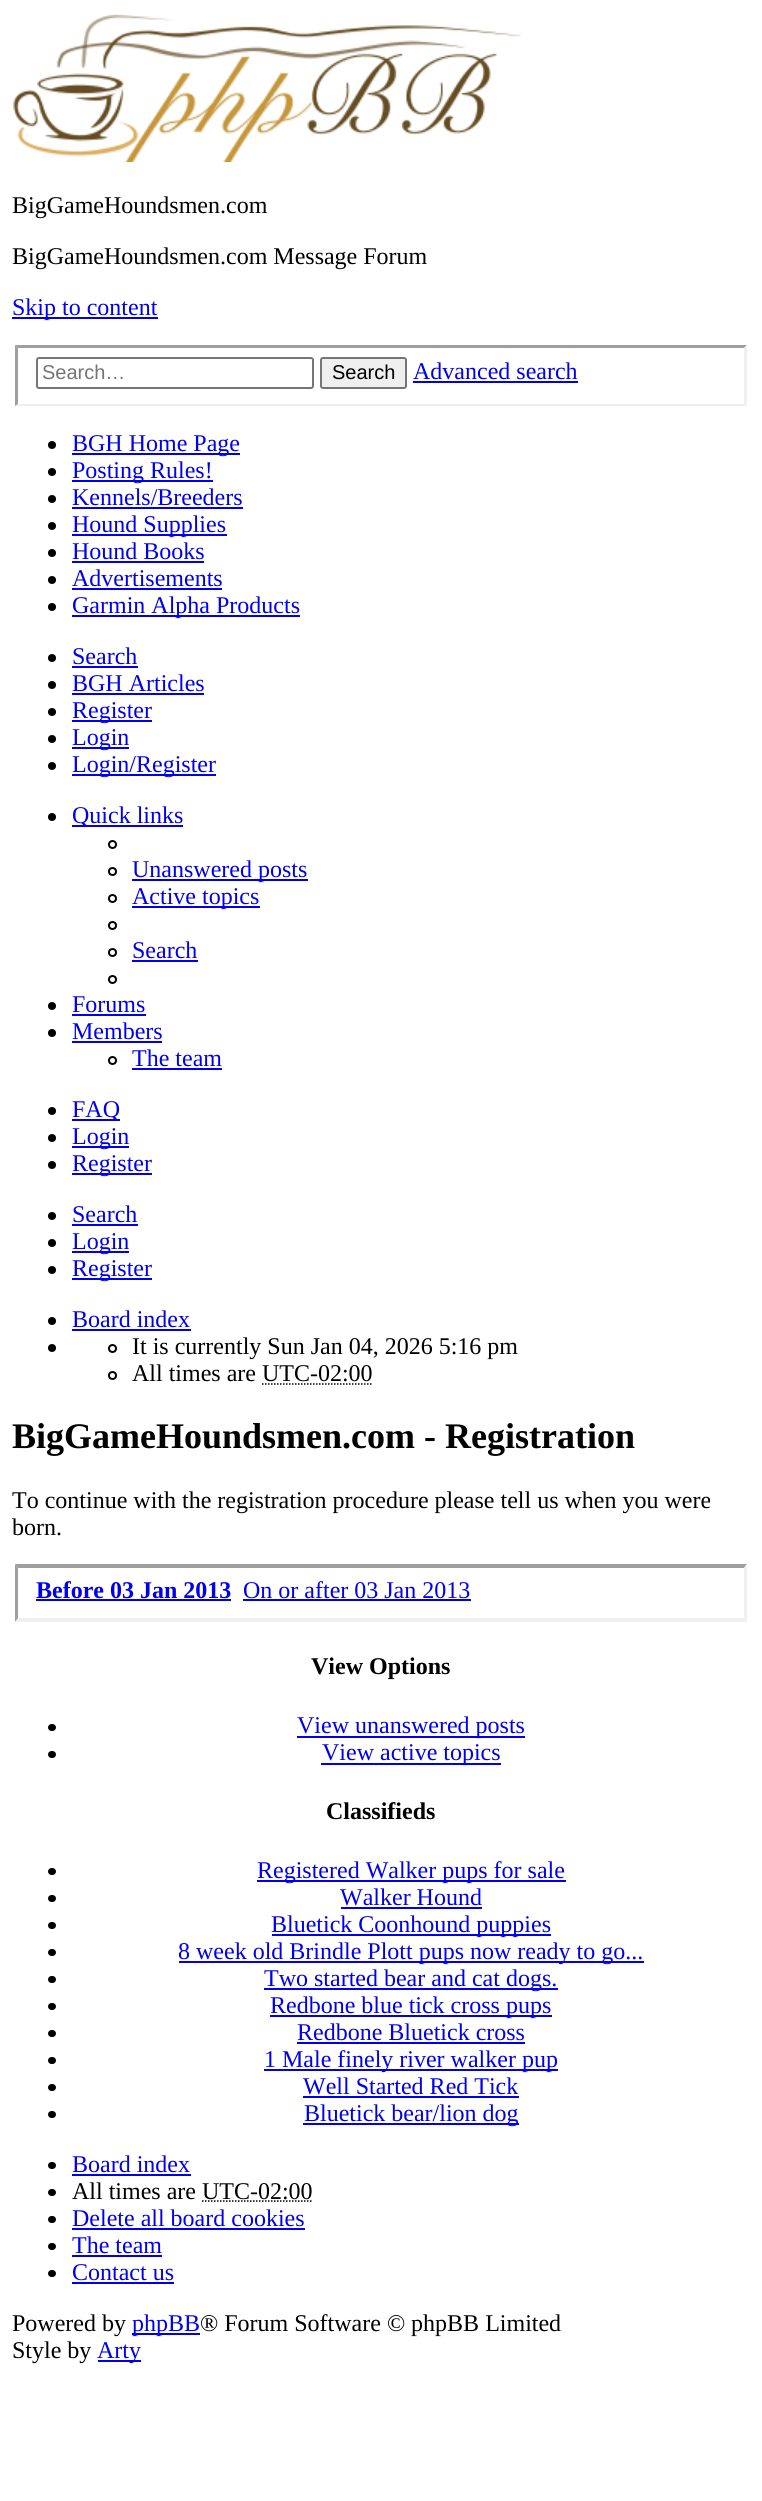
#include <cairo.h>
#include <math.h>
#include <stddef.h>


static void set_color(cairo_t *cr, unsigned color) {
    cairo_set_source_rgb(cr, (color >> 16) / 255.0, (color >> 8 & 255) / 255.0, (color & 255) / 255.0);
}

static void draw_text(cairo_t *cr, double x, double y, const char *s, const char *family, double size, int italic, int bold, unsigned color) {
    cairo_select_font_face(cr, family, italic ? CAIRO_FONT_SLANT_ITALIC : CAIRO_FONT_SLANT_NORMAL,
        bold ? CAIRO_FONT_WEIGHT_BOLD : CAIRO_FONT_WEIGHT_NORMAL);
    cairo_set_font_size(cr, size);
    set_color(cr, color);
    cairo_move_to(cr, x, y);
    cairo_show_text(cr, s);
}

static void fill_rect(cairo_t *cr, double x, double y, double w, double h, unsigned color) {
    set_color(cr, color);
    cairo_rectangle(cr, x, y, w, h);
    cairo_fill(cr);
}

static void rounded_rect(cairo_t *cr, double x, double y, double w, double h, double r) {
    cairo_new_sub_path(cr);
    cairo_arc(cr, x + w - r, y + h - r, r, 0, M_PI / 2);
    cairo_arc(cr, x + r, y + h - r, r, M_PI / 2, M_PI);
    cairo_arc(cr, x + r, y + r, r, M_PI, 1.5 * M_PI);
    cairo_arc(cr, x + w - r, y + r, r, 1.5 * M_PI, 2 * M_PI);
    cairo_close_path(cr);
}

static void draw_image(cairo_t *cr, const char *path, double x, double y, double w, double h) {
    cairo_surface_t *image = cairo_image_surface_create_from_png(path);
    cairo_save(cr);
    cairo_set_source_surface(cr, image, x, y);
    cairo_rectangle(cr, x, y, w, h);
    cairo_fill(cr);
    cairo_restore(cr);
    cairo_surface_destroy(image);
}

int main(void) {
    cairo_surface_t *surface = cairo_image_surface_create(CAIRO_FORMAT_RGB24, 762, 2501);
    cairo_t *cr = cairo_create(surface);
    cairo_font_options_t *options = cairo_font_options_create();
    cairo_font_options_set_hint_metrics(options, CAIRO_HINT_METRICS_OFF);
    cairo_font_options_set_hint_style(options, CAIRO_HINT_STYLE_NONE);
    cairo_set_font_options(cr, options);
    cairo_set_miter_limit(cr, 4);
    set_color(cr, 0xFFFFFF);
    cairo_paint(cr);
    draw_image(cr, "assets/img1.png", 13, 14, 509, 148);
    draw_text(cr, 12, 213, "BigGameHoundsmen.com", "Liberation Serif", 24, 0, 0, 0x000000);
    draw_text(cr, 12, 264, "BigGameHoundsmen.com Message Forum", "Liberation Serif", 24, 0, 0, 0x000000);
    fill_rect(cr, 12, 317, 146, 2, 0x0000EE);
    draw_text(cr, 12, 315, "Skip to content", "Liberation Serif", 24, 0, 0, 0x0000EE);
    set_color(cr, 0x9F9F9F);
    cairo_new_path(cr);
    cairo_move_to(cr, 15, 345);
    cairo_line_to(cr, 747, 345);
    cairo_line_to(cr, 744, 348);
    cairo_line_to(cr, 18, 348);
    cairo_close_path(cr);
    cairo_fill(cr);
    set_color(cr, 0xEFEFEF);
    cairo_new_path(cr);
    cairo_move_to(cr, 747, 345);
    cairo_line_to(cr, 747, 406);
    cairo_line_to(cr, 744, 404);
    cairo_line_to(cr, 744, 348);
    cairo_close_path(cr);
    cairo_fill(cr);
    cairo_new_path(cr);
    cairo_move_to(cr, 747, 406);
    cairo_line_to(cr, 15, 406);
    cairo_line_to(cr, 18, 404);
    cairo_line_to(cr, 744, 404);
    cairo_close_path(cr);
    cairo_fill(cr);
    set_color(cr, 0x9F9F9F);
    cairo_new_path(cr);
    cairo_move_to(cr, 15, 406);
    cairo_line_to(cr, 15, 345);
    cairo_line_to(cr, 18, 348);
    cairo_line_to(cr, 18, 404);
    cairo_close_path(cr);
    cairo_fill(cr);
    rounded_rect(cr, 37, 358, 276, 30, 2);
    set_color(cr, 0x767676);
    cairo_stroke(cr);
    draw_text(cr, 42, 379, "Search…", "Liberation Sans", 20, 0, 0, 0x757575);
    set_color(cr, 0xEFEFEF);
    rounded_rect(cr, 321, 358, 85, 30, 2);
    cairo_fill_preserve(cr);
    set_color(cr, 0x767676);
    cairo_stroke(cr);
    draw_text(cr, 332, 379, "Search", "Liberation Sans", 20, 0, 0, 0x000000);
    draw_text(cr, 413, 379, "Advanced search", "Liberation Serif", 24, 0, 0, 0x0000EE);
    fill_rect(cr, 413, 381, 165, 2, 0x0000EE);
    set_color(cr, 0x000000);
    cairo_new_path(cr);
    cairo_arc(cr, 52, 445, 4, 0, 2 * M_PI);
    cairo_fill(cr);
    fill_rect(cr, 72, 453, 168, 2, 0x0000EE);
    draw_text(cr, 72, 451, "BGH Home Page", "Liberation Serif", 24, 0, 0, 0x0000EE);
    set_color(cr, 0x000000);
    cairo_new_path(cr);
    cairo_arc(cr, 52, 472, 4, 0, 2 * M_PI);
    cairo_fill(cr);
    fill_rect(cr, 72, 480, 141, 2, 0x0000EE);
    draw_text(cr, 72, 478, "Posting Rules!", "Liberation Serif", 24, 0, 0, 0x0000EE);
    set_color(cr, 0x000000);
    cairo_new_path(cr);
    cairo_arc(cr, 52, 499, 4, 0, 2 * M_PI);
    cairo_fill(cr);
    draw_text(cr, 72, 505, "Kennels/Breeders", "Liberation Serif", 24, 0, 0, 0x0000EE);
    fill_rect(cr, 72, 507, 171, 2, 0x0000EE);
    set_color(cr, 0x000000);
    cairo_new_path(cr);
    cairo_arc(cr, 52, 526, 4, 0, 2 * M_PI);
    cairo_fill(cr);
    fill_rect(cr, 72, 534, 155, 2, 0x0000EE);
    draw_text(cr, 72, 532, "Hound Supplies", "Liberation Serif", 24, 0, 0, 0x0000EE);
    set_color(cr, 0x000000);
    cairo_new_path(cr);
    cairo_arc(cr, 52, 553, 4, 0, 2 * M_PI);
    cairo_fill(cr);
    draw_text(cr, 72, 559, "Hound Books", "Liberation Serif", 24, 0, 0, 0x0000EE);
    fill_rect(cr, 72, 561, 132, 2, 0x0000EE);
    set_color(cr, 0x000000);
    cairo_new_path(cr);
    cairo_arc(cr, 52, 580, 4, 0, 2 * M_PI);
    cairo_fill(cr);
    draw_text(cr, 72, 586, "Advertisements", "Liberation Serif", 24, 0, 0, 0x0000EE);
    fill_rect(cr, 72, 588, 150, 2, 0x0000EE);
    set_color(cr, 0x000000);
    cairo_new_path(cr);
    cairo_arc(cr, 52, 607, 4, 0, 2 * M_PI);
    cairo_fill(cr);
    fill_rect(cr, 72, 615, 228, 2, 0x0000EE);
    draw_text(cr, 72, 613, "Garmin Alpha Products", "Liberation Serif", 24, 0, 0, 0x0000EE);
    set_color(cr, 0x000000);
    cairo_new_path(cr);
    cairo_arc(cr, 52, 658, 4, 0, 2 * M_PI);
    cairo_fill(cr);
    draw_text(cr, 72, 664, "Search", "Liberation Serif", 24, 0, 0, 0x0000EE);
    fill_rect(cr, 72, 666, 66, 2, 0x0000EE);
    set_color(cr, 0x000000);
    cairo_new_path(cr);
    cairo_arc(cr, 52, 685, 4, 0, 2 * M_PI);
    cairo_fill(cr);
    draw_text(cr, 72, 691, "BGH Articles", "Liberation Serif", 24, 0, 0, 0x0000EE);
    fill_rect(cr, 72, 693, 132, 2, 0x0000EE);
    set_color(cr, 0x000000);
    cairo_new_path(cr);
    cairo_arc(cr, 52, 712, 4, 0, 2 * M_PI);
    cairo_fill(cr);
    fill_rect(cr, 72, 720, 80, 2, 0x0000EE);
    draw_text(cr, 72, 718, "Register", "Liberation Serif", 24, 0, 0, 0x0000EE);
    set_color(cr, 0x000000);
    cairo_new_path(cr);
    cairo_arc(cr, 52, 739, 4, 0, 2 * M_PI);
    cairo_fill(cr);
    fill_rect(cr, 72, 747, 57, 2, 0x0000EE);
    draw_text(cr, 72, 745, "Login", "Liberation Serif", 24, 0, 0, 0x0000EE);
    set_color(cr, 0x000000);
    cairo_new_path(cr);
    cairo_arc(cr, 52, 766, 4, 0, 2 * M_PI);
    cairo_fill(cr);
    fill_rect(cr, 72, 774, 144, 2, 0x0000EE);
    draw_text(cr, 72, 772, "Login/Register", "Liberation Serif", 24, 0, 0, 0x0000EE);
    set_color(cr, 0x000000);
    cairo_new_path(cr);
    cairo_arc(cr, 52, 817, 4, 0, 2 * M_PI);
    cairo_fill(cr);
    fill_rect(cr, 72, 825, 111, 2, 0x0000EE);
    draw_text(cr, 72, 823, "Quick links", "Liberation Serif", 24, 0, 0, 0x0000EE);
    cairo_new_path(cr);
    cairo_arc(cr, 112.5, 844.5, 3.5, 0, 2 * M_PI);
    set_color(cr, 0x000000);
    cairo_stroke(cr);
    cairo_arc(cr, 112.5, 871.5, 3.5, 0, 2 * M_PI);
    cairo_stroke(cr);
    fill_rect(cr, 132, 879, 176, 2, 0x0000EE);
    draw_text(cr, 132, 877, "Unanswered posts", "Liberation Serif", 24, 0, 0, 0x0000EE);
    cairo_new_path(cr);
    cairo_arc(cr, 112.5, 898.5, 3.5, 0, 2 * M_PI);
    set_color(cr, 0x000000);
    cairo_stroke(cr);
    fill_rect(cr, 132, 906, 128, 2, 0x0000EE);
    draw_text(cr, 132, 904, "Active topics", "Liberation Serif", 24, 0, 0, 0x0000EE);
    cairo_new_path(cr);
    cairo_arc(cr, 112.5, 925.5, 3.5, 0, 2 * M_PI);
    set_color(cr, 0x000000);
    cairo_stroke(cr);
    cairo_arc(cr, 112.5, 952.5, 3.5, 0, 2 * M_PI);
    cairo_stroke(cr);
    draw_text(cr, 132, 958, "Search", "Liberation Serif", 24, 0, 0, 0x0000EE);
    fill_rect(cr, 132, 960, 66, 2, 0x0000EE);
    cairo_new_path(cr);
    cairo_arc(cr, 112.5, 979.5, 3.5, 0, 2 * M_PI);
    set_color(cr, 0x000000);
    cairo_stroke(cr);
    cairo_arc(cr, 52, 1006, 4, 0, 2 * M_PI);
    cairo_fill(cr);
    draw_text(cr, 72, 1012, "Forums", "Liberation Serif", 24, 0, 0, 0x0000EE);
    fill_rect(cr, 72, 1014, 74, 2, 0x0000EE);
    set_color(cr, 0x000000);
    cairo_new_path(cr);
    cairo_arc(cr, 52, 1033, 4, 0, 2 * M_PI);
    cairo_fill(cr);
    draw_text(cr, 72, 1039, "Members", "Liberation Serif", 24, 0, 0, 0x0000EE);
    fill_rect(cr, 72, 1041, 90, 2, 0x0000EE);
    cairo_new_path(cr);
    cairo_arc(cr, 112.5, 1060.5, 3.5, 0, 2 * M_PI);
    set_color(cr, 0x000000);
    cairo_stroke(cr);
    draw_text(cr, 132, 1066, "The team", "Liberation Serif", 24, 0, 0, 0x0000EE);
    fill_rect(cr, 132, 1068, 90, 2, 0x0000EE);
    set_color(cr, 0x000000);
    cairo_new_path(cr);
    cairo_arc(cr, 52, 1111, 4, 0, 2 * M_PI);
    cairo_fill(cr);
    fill_rect(cr, 72, 1119, 48, 2, 0x0000EE);
    draw_text(cr, 72, 1117, "FAQ", "Liberation Serif", 24, 0, 0, 0x0000EE);
    set_color(cr, 0x000000);
    cairo_new_path(cr);
    cairo_arc(cr, 52, 1138, 4, 0, 2 * M_PI);
    cairo_fill(cr);
    fill_rect(cr, 72, 1146, 57, 2, 0x0000EE);
    draw_text(cr, 72, 1144, "Login", "Liberation Serif", 24, 0, 0, 0x0000EE);
    set_color(cr, 0x000000);
    cairo_new_path(cr);
    cairo_arc(cr, 52, 1165, 4, 0, 2 * M_PI);
    cairo_fill(cr);
    fill_rect(cr, 72, 1173, 80, 2, 0x0000EE);
    draw_text(cr, 72, 1171, "Register", "Liberation Serif", 24, 0, 0, 0x0000EE);
    set_color(cr, 0x000000);
    cairo_new_path(cr);
    cairo_arc(cr, 52, 1216, 4, 0, 2 * M_PI);
    cairo_fill(cr);
    draw_text(cr, 72, 1222, "Search", "Liberation Serif", 24, 0, 0, 0x0000EE);
    fill_rect(cr, 72, 1224, 66, 2, 0x0000EE);
    set_color(cr, 0x000000);
    cairo_new_path(cr);
    cairo_arc(cr, 52, 1243, 4, 0, 2 * M_PI);
    cairo_fill(cr);
    fill_rect(cr, 72, 1251, 57, 2, 0x0000EE);
    draw_text(cr, 72, 1249, "Login", "Liberation Serif", 24, 0, 0, 0x0000EE);
    set_color(cr, 0x000000);
    cairo_new_path(cr);
    cairo_arc(cr, 52, 1270, 4, 0, 2 * M_PI);
    cairo_fill(cr);
    fill_rect(cr, 72, 1278, 80, 2, 0x0000EE);
    draw_text(cr, 72, 1276, "Register", "Liberation Serif", 24, 0, 0, 0x0000EE);
    set_color(cr, 0x000000);
    cairo_new_path(cr);
    cairo_arc(cr, 52, 1321, 4, 0, 2 * M_PI);
    cairo_fill(cr);
    draw_text(cr, 72, 1327, "Board index", "Liberation Serif", 24, 0, 0, 0x0000EE);
    fill_rect(cr, 72, 1329, 119, 2, 0x0000EE);
    set_color(cr, 0x000000);
    cairo_new_path(cr);
    cairo_arc(cr, 52, 1348, 4, 0, 2 * M_PI);
    cairo_fill(cr);
    cairo_arc(cr, 112.5, 1348.5, 3.5, 0, 2 * M_PI);
    cairo_stroke(cr);
    draw_text(cr, 132, 1354, "It is currently Sun Jan 04, 2026 5:16 pm", "Liberation Serif", 24, 0, 0, 0x000000);
    cairo_new_path(cr);
    cairo_arc(cr, 112.5, 1375.5, 3.5, 0, 2 * M_PI);
    cairo_stroke(cr);
    draw_text(cr, 132, 1381, "All times are UTC-02:00", "Liberation Serif", 24, 0, 0, 0x000000);
    cairo_new_path(cr);
    cairo_move_to(cr, 262, 1384);
    cairo_line_to(cr, 372.5, 1384);
    cairo_set_line_width(cr, 1.5);
    cairo_set_dash(cr, (double[]){1.5, 1.5}, 2, 0);
    cairo_stroke(cr);
    draw_text(cr, 12, 1448, "BigGameHoundsmen.com - Registration", "Liberation Serif", 36, 0, 1, 0x000000);
    draw_text(cr, 12, 1508, "To continue with the registration procedure please tell us when you were", "Liberation Serif", 24, 0, 0, 0x000000);
    draw_text(cr, 12, 1535, "born.", "Liberation Serif", 24, 0, 0, 0x000000);
    set_color(cr, 0x9F9F9F);
    cairo_new_path(cr);
    cairo_move_to(cr, 15, 1564);
    cairo_line_to(cr, 747, 1564);
    cairo_line_to(cr, 744, 1568);
    cairo_line_to(cr, 18, 1568);
    cairo_close_path(cr);
    cairo_fill(cr);
    set_color(cr, 0xEFEFEF);
    cairo_new_path(cr);
    cairo_move_to(cr, 747, 1564);
    cairo_line_to(cr, 747, 1622);
    cairo_line_to(cr, 744, 1618);
    cairo_line_to(cr, 744, 1568);
    cairo_close_path(cr);
    cairo_fill(cr);
    cairo_new_path(cr);
    cairo_move_to(cr, 747, 1622);
    cairo_line_to(cr, 15, 1622);
    cairo_line_to(cr, 18, 1618);
    cairo_line_to(cr, 744, 1618);
    cairo_close_path(cr);
    cairo_fill(cr);
    set_color(cr, 0x9F9F9F);
    cairo_new_path(cr);
    cairo_move_to(cr, 15, 1622);
    cairo_line_to(cr, 15, 1564);
    cairo_line_to(cr, 18, 1568);
    cairo_line_to(cr, 18, 1618);
    cairo_close_path(cr);
    cairo_fill(cr);
    draw_text(cr, 36, 1598, "Before 03 Jan 2013", "Liberation Serif", 24, 0, 1, 0x0000EE);
    fill_rect(cr, 36, 1599, 195, 2, 0x0000EE);
    draw_text(cr, 243, 1598, "On or after 03 Jan 2013", "Liberation Serif", 24, 0, 0, 0x0000EE);
    fill_rect(cr, 243, 1599, 228, 2, 0x0000EE);
    draw_text(cr, 311, 1674, "View Options", "Liberation Serif", 24, 0, 1, 0x000000);
    rounded_rect(cr, 48, 1724, 8, 7, 3.5);
    cairo_fill(cr);
    fill_rect(cr, 297, 1736, 228, 2, 0x0000EE);
    draw_text(cr, 297, 1733, "View unanswered posts", "Liberation Serif", 24, 0, 0, 0x0000EE);
    set_color(cr, 0x000000);
    rounded_rect(cr, 48, 1751, 8, 7, 3.5);
    cairo_fill(cr);
    fill_rect(cr, 321, 1763, 180, 2, 0x0000EE);
    draw_text(cr, 322, 1760, "View active topics", "Liberation Serif", 24, 0, 0, 0x0000EE);
    draw_text(cr, 326, 1819, "Classifieds", "Liberation Serif", 24, 0, 1, 0x000000);
    rounded_rect(cr, 48, 1868, 8, 7, 3.5);
    cairo_fill(cr);
    fill_rect(cr, 257, 1880, 309, 2, 0x0000EE);
    draw_text(cr, 257, 1878, "Registered Walker pups for sale", "Liberation Serif", 24, 0, 0, 0x0000EE);
    set_color(cr, 0x000000);
    rounded_rect(cr, 48, 1895, 8, 7, 3.5);
    cairo_fill(cr);
    draw_text(cr, 340, 1905, "Walker Hound", "Liberation Serif", 24, 0, 0, 0x0000EE);
    fill_rect(cr, 341, 1907, 141, 2, 0x0000EE);
    set_color(cr, 0x000000);
    rounded_rect(cr, 48, 1922, 8, 7, 3.5);
    cairo_fill(cr);
    fill_rect(cr, 272, 1934, 279, 2, 0x0000EE);
    draw_text(cr, 271, 1932, "Bluetick Coonhound puppies", "Liberation Serif", 24, 0, 0, 0x0000EE);
    set_color(cr, 0x000000);
    rounded_rect(cr, 48, 1949, 8, 7, 3.5);
    cairo_fill(cr);
    fill_rect(cr, 179, 1961, 465, 2, 0x0000EE);
    draw_text(cr, 178, 1959, "8 week old Brindle Plott pups now ready to go...", "Liberation Serif", 24, 0, 0, 0x0000EE);
    set_color(cr, 0x000000);
    rounded_rect(cr, 48, 1976, 8, 7, 3.5);
    cairo_fill(cr);
    fill_rect(cr, 264, 1988, 294, 2, 0x0000EE);
    draw_text(cr, 264, 1986, "Two started bear and cat dogs.", "Liberation Serif", 24, 0, 0, 0x0000EE);
    set_color(cr, 0x000000);
    rounded_rect(cr, 48, 2003, 8, 7, 3.5);
    cairo_fill(cr);
    fill_rect(cr, 270, 2015, 282, 2, 0x0000EE);
    draw_text(cr, 270, 2013, "Redbone blue tick cross pups", "Liberation Serif", 24, 0, 0, 0x0000EE);
    set_color(cr, 0x000000);
    rounded_rect(cr, 48, 2030, 8, 7, 3.5);
    cairo_fill(cr);
    draw_text(cr, 297, 2040, "Redbone Bluetick cross", "Liberation Serif", 24, 0, 0, 0x0000EE);
    fill_rect(cr, 297, 2042, 228, 2, 0x0000EE);
    set_color(cr, 0x000000);
    rounded_rect(cr, 48, 2057, 8, 7, 3.5);
    cairo_fill(cr);
    fill_rect(cr, 264, 2069, 294, 2, 0x0000EE);
    draw_text(cr, 264, 2067, "1 Male finely river walker pup", "Liberation Serif", 24, 0, 0, 0x0000EE);
    set_color(cr, 0x000000);
    rounded_rect(cr, 48, 2084, 8, 7, 3.5);
    cairo_fill(cr);
    draw_text(cr, 303, 2094, "Well Started Red Tick", "Liberation Serif", 24, 0, 0, 0x0000EE);
    fill_rect(cr, 303, 2096, 216, 2, 0x0000EE);
    set_color(cr, 0x000000);
    rounded_rect(cr, 48, 2111, 8, 7, 3.5);
    cairo_fill(cr);
    fill_rect(cr, 303, 2123, 216, 2, 0x0000EE);
    draw_text(cr, 304, 2121, "Bluetick bear/lion dog", "Liberation Serif", 24, 0, 0, 0x0000EE);
    set_color(cr, 0x000000);
    rounded_rect(cr, 48, 2162, 8, 7, 3.5);
    cairo_fill(cr);
    draw_text(cr, 72, 2172, "Board index", "Liberation Serif", 24, 0, 0, 0x0000EE);
    fill_rect(cr, 72, 2174, 119, 2, 0x0000EE);
    set_color(cr, 0x000000);
    rounded_rect(cr, 48, 2189, 8, 7, 3.5);
    cairo_fill(cr);
    draw_text(cr, 72, 2199, "All times are UTC-02:00", "Liberation Serif", 24, 0, 0, 0x000000);
    cairo_new_path(cr);
    cairo_move_to(cr, 202, 2201);
    cairo_line_to(cr, 312.5, 2201);
    cairo_stroke(cr);
    rounded_rect(cr, 48, 2216, 8, 7, 3.5);
    cairo_fill(cr);
    draw_text(cr, 72, 2226, "Delete all board cookies", "Liberation Serif", 24, 0, 0, 0x0000EE);
    fill_rect(cr, 72, 2228, 233, 2, 0x0000EE);
    set_color(cr, 0x000000);
    rounded_rect(cr, 48, 2243, 8, 7, 3.5);
    cairo_fill(cr);
    draw_text(cr, 72, 2253, "The team", "Liberation Serif", 24, 0, 0, 0x0000EE);
    fill_rect(cr, 72, 2255, 90, 2, 0x0000EE);
    set_color(cr, 0x000000);
    rounded_rect(cr, 48, 2270, 8, 7, 3.5);
    cairo_fill(cr);
    draw_text(cr, 72, 2280, "Contact us", "Liberation Serif", 24, 0, 0, 0x0000EE);
    fill_rect(cr, 72, 2282, 102, 2, 0x0000EE);
    draw_text(cr, 12, 2331, "Powered by", "Liberation Serif", 24, 0, 0, 0x000000);
    fill_rect(cr, 132, 2333, 68, 2, 0x0000EE);
    draw_text(cr, 132, 2331, "phpBB", "Liberation Serif", 24, 0, 0, 0x0000EE);
    draw_text(cr, 200, 2331, "® Forum Software © phpBB Limited", "Liberation Serif", 24, 0, 0, 0x000000);
    draw_text(cr, 12, 2358, "Style by", "Liberation Serif", 24, 0, 0, 0x000000);
    fill_rect(cr, 98, 2360, 43, 2, 0x0000EE);
    draw_text(cr, 97, 2358, "Arty", "Liberation Serif", 24, 0, 0, 0x0000EE);
    cairo_surface_write_to_png(surface, "output.png");
    cairo_font_options_destroy(options);
    cairo_destroy(cr);
    cairo_surface_destroy(surface);
    return 0;
}
